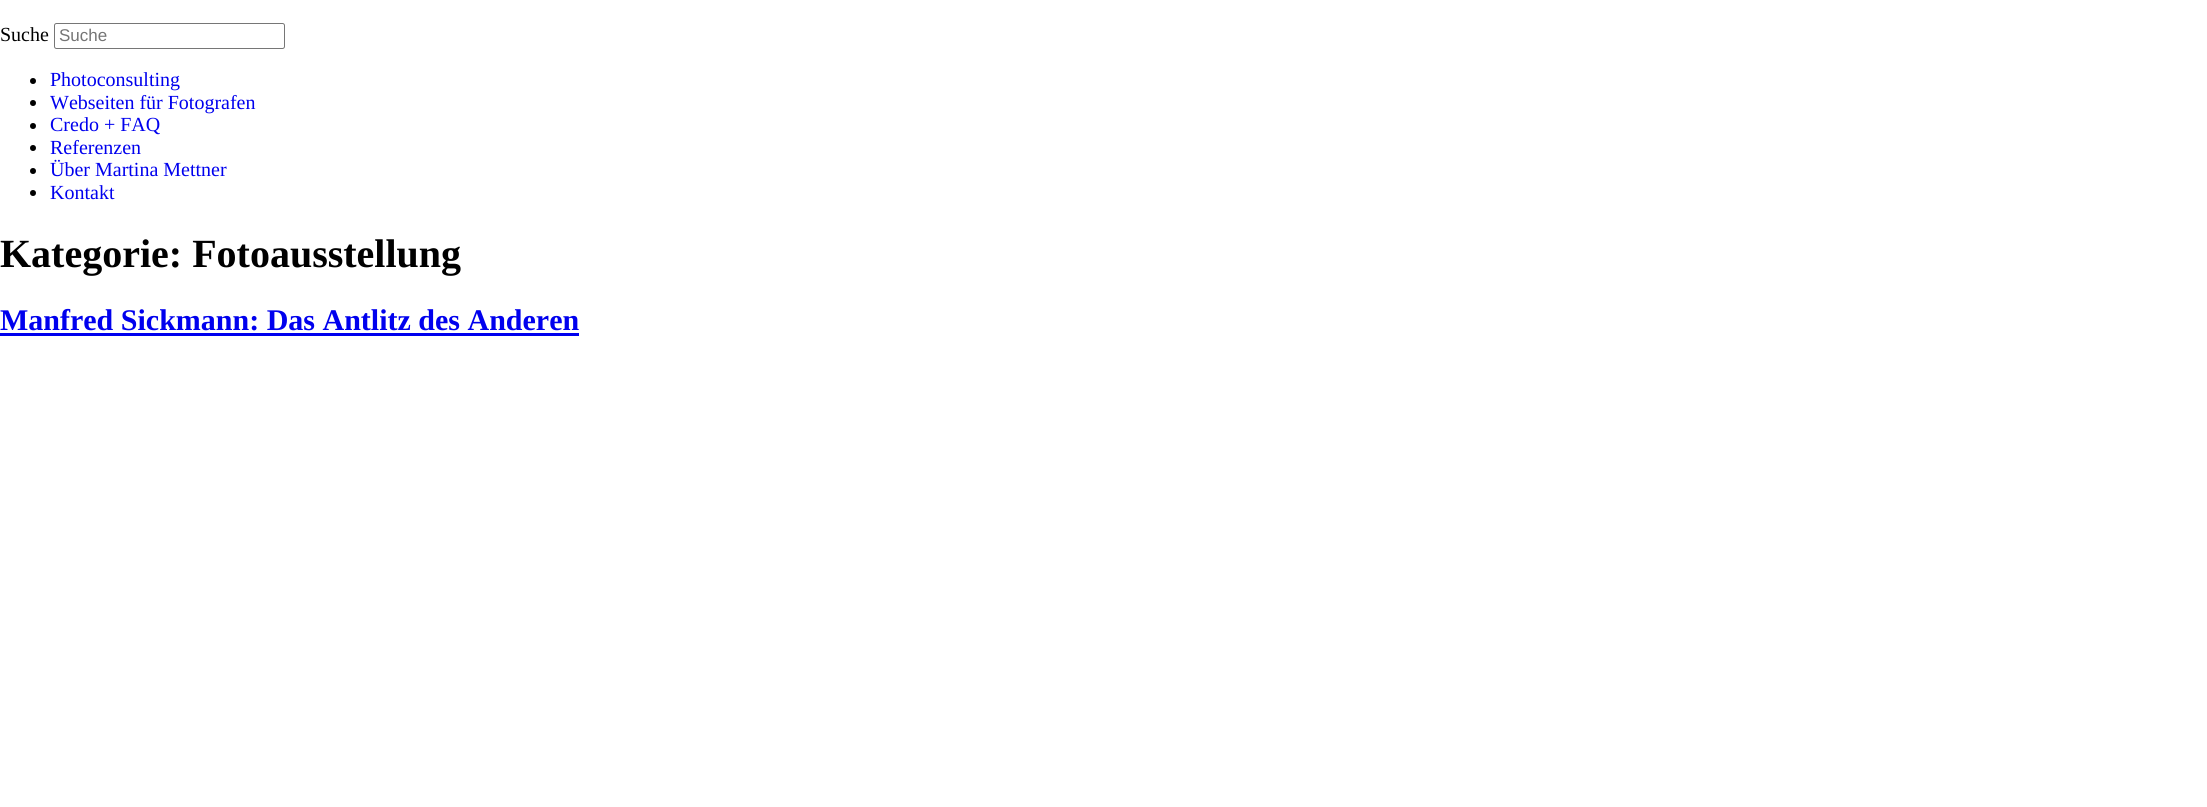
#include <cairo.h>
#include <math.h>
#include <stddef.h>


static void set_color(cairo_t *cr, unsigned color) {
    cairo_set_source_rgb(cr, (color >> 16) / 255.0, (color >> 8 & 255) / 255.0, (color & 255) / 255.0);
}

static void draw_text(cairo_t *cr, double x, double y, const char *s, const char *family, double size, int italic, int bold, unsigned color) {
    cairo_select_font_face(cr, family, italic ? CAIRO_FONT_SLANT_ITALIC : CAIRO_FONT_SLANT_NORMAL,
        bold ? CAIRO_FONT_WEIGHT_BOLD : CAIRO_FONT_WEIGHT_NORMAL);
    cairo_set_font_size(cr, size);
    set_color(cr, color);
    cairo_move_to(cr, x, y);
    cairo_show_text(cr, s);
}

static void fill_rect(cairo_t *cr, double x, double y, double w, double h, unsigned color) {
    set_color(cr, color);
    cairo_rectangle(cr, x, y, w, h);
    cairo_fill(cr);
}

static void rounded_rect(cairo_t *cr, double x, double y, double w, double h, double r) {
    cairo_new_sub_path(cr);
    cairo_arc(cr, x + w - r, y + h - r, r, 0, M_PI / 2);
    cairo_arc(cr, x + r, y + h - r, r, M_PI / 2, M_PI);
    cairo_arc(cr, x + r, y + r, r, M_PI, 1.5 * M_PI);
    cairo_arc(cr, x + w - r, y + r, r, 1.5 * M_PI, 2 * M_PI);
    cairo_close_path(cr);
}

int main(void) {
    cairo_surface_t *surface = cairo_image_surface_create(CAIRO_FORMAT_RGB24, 2207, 807);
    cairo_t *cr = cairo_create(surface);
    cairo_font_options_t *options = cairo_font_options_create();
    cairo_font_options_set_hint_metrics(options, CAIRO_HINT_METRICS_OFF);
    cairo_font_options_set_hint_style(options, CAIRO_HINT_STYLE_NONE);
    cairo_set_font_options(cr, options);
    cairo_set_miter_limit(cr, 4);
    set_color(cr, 0xFFFFFF);
    cairo_paint(cr);
    draw_text(cr, 0, 41, "Suche", "Liberation Serif", 20, 0, 0, 0x000000);
    rounded_rect(cr, 54.5, 23.5, 230, 25, 2);
    set_color(cr, 0x767676);
    cairo_set_line_width(cr, 1);
    cairo_stroke(cr);
    draw_text(cr, 59, 41, "Suche", "Liberation Sans", 17, 0, 0, 0x757575);
    set_color(cr, 0x000000);
    cairo_new_path(cr);
    cairo_arc(cr, 33, 81, 3, 0, 2 * M_PI);
    cairo_fill(cr);
    draw_text(cr, 50, 86, "Photoconsulting", "Liberation Serif", 20, 0, 0, 0x0000EE);
    set_color(cr, 0x000000);
    cairo_new_path(cr);
    cairo_arc(cr, 33, 103, 3, 0, 2 * M_PI);
    cairo_fill(cr);
    draw_text(cr, 50, 109, "Webseiten für Fotografen", "Liberation Serif", 20, 0, 0, 0x0000EE);
    set_color(cr, 0x000000);
    cairo_new_path(cr);
    cairo_arc(cr, 33, 126, 3, 0, 2 * M_PI);
    cairo_fill(cr);
    draw_text(cr, 50, 131, "Credo + FAQ", "Liberation Serif", 20, 0, 0, 0x0000EE);
    set_color(cr, 0x000000);
    cairo_new_path(cr);
    cairo_arc(cr, 33, 148, 3, 0, 2 * M_PI);
    cairo_fill(cr);
    draw_text(cr, 50, 154, "Referenzen", "Liberation Serif", 20, 0, 0, 0x0000EE);
    set_color(cr, 0x000000);
    cairo_new_path(cr);
    cairo_arc(cr, 33, 171, 3, 0, 2 * M_PI);
    cairo_fill(cr);
    draw_text(cr, 50, 176, "Über Martina Mettner", "Liberation Serif", 20, 0, 0, 0x0000EE);
    set_color(cr, 0x000000);
    cairo_new_path(cr);
    cairo_arc(cr, 33, 193, 3, 0, 2 * M_PI);
    cairo_fill(cr);
    draw_text(cr, 50, 199, "Kontakt", "Liberation Serif", 20, 0, 0, 0x0000EE);
    draw_text(cr, 0, 267, "Kategorie: Fotoausstellung", "Liberation Serif", 40, 0, 1, 0x000000);
    draw_text(cr, 0, 330, "Manfred Sickmann: Das Antlitz des Anderen", "Liberation Serif", 30, 0, 1, 0x0000EE);
    fill_rect(cr, 0, 333, 579, 3, 0x0000EE);
    cairo_surface_write_to_png(surface, "output.png");
    cairo_font_options_destroy(options);
    cairo_destroy(cr);
    cairo_surface_destroy(surface);
    return 0;
}
